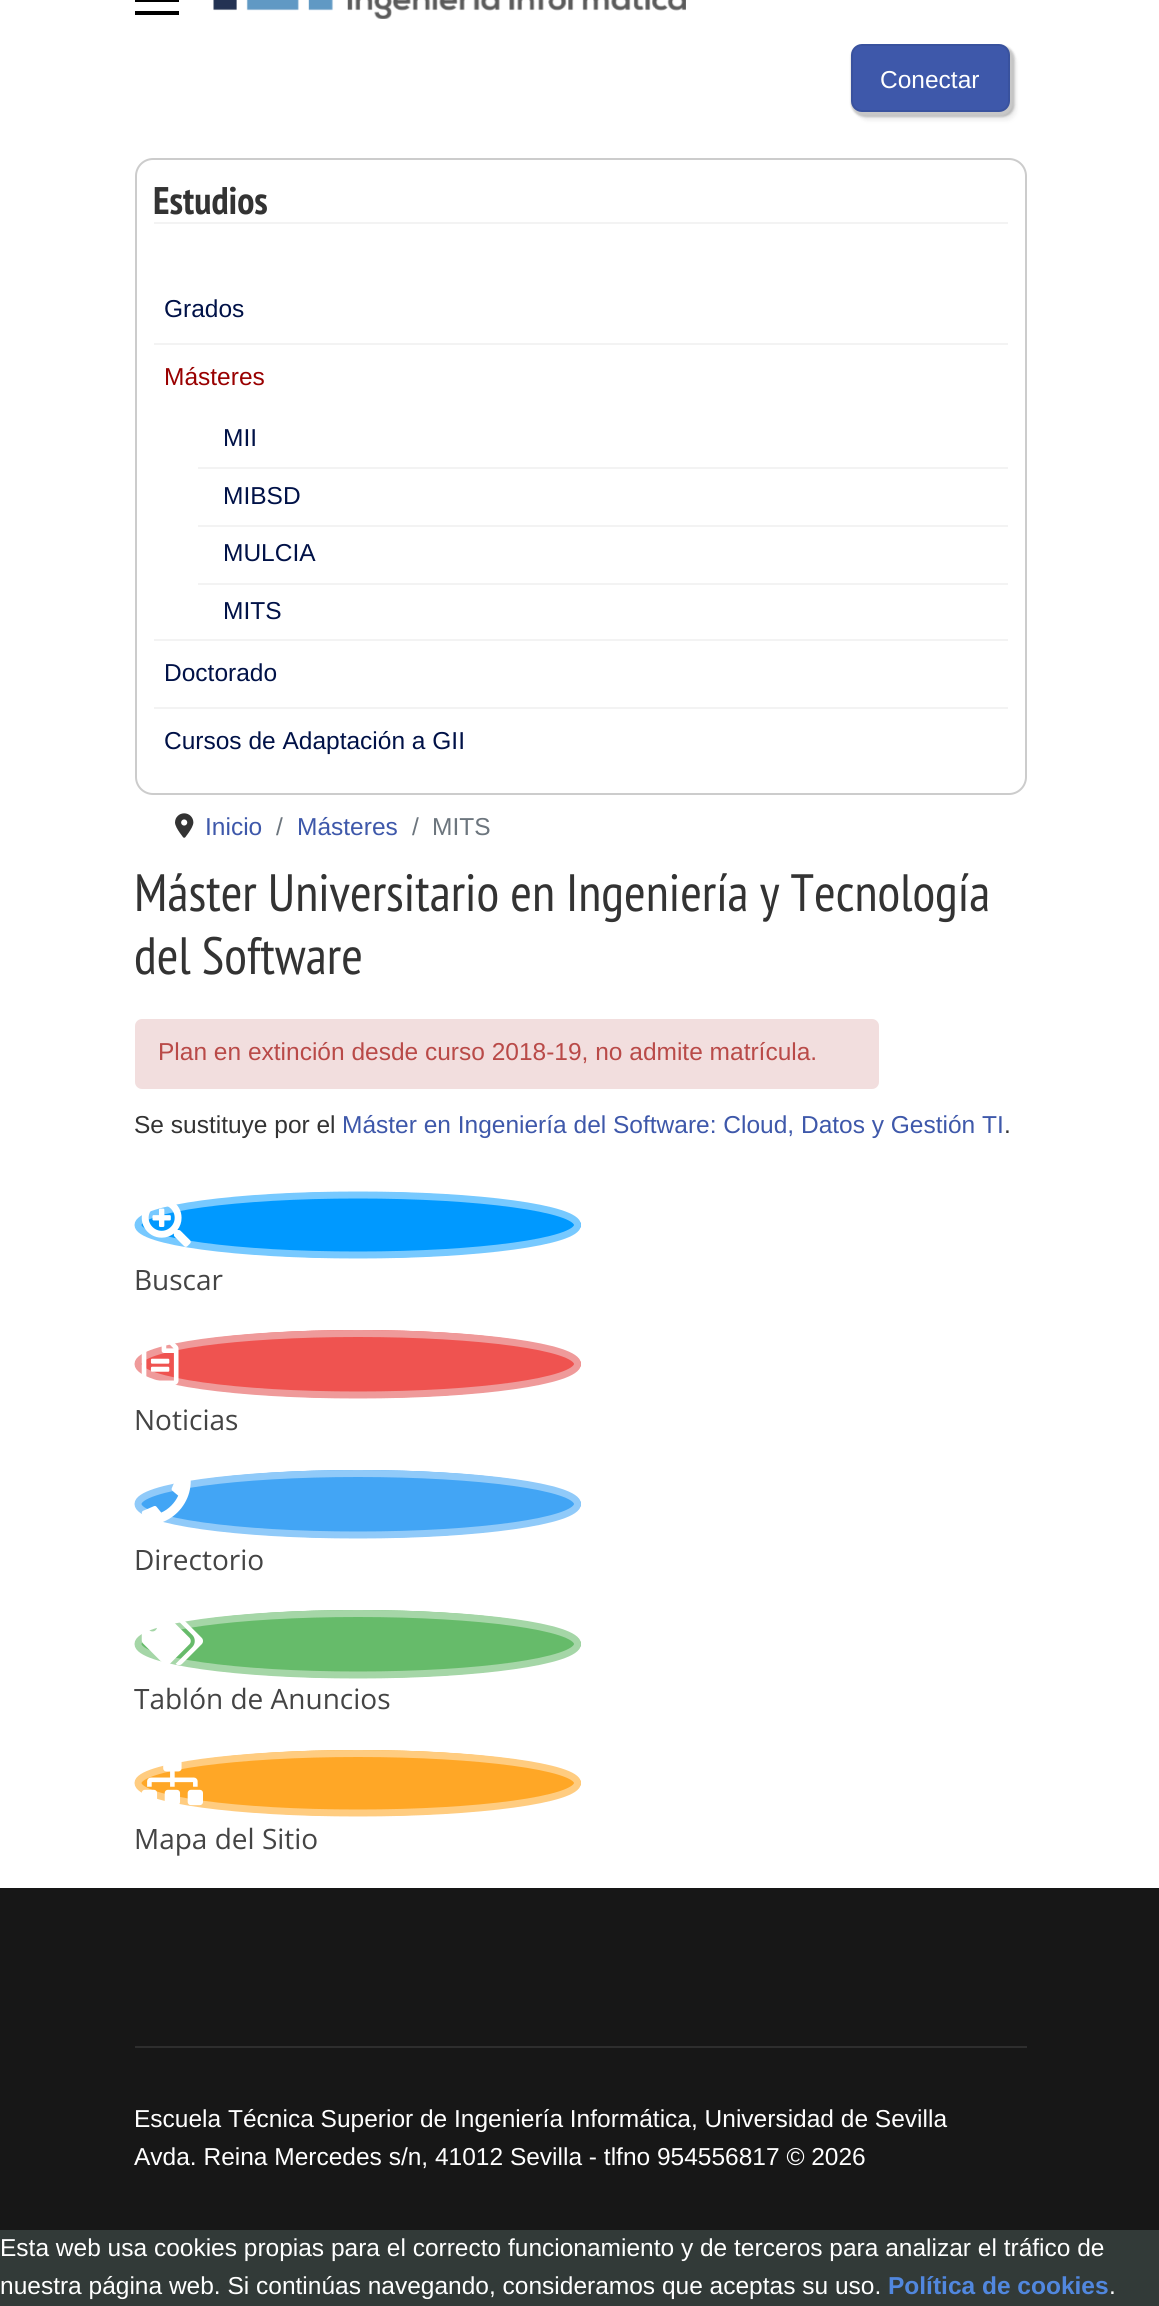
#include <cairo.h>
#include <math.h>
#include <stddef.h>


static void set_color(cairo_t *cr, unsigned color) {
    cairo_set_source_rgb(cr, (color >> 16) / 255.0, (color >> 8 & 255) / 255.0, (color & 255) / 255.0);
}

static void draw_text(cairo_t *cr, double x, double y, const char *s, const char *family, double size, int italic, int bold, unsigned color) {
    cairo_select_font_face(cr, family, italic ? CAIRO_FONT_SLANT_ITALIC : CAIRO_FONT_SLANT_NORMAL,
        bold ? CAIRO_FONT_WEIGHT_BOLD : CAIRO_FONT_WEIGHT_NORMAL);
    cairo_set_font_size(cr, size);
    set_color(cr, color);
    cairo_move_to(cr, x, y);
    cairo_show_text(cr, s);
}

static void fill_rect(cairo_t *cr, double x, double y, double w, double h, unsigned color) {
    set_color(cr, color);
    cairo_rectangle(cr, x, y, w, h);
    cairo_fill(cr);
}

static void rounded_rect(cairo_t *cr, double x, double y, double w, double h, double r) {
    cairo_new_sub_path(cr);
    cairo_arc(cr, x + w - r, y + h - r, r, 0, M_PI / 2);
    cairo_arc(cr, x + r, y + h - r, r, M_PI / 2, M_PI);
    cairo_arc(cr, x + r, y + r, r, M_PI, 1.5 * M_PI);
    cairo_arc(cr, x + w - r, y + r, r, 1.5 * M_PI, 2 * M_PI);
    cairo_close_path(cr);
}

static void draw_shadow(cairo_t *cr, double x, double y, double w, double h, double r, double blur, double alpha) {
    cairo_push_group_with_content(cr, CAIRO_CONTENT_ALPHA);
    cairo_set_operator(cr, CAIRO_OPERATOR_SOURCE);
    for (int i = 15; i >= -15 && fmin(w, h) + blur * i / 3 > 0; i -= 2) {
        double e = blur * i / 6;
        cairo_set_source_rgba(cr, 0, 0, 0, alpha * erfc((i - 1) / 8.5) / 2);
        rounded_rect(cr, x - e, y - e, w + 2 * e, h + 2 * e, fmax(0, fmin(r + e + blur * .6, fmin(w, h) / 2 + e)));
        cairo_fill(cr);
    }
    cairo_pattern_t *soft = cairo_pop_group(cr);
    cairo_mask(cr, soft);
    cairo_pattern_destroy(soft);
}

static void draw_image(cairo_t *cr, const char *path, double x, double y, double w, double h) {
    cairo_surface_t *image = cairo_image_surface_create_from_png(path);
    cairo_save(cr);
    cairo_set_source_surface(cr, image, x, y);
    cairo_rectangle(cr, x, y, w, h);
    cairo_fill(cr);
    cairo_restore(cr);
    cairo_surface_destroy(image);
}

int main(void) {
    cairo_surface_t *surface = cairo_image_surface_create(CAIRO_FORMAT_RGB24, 1159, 2306);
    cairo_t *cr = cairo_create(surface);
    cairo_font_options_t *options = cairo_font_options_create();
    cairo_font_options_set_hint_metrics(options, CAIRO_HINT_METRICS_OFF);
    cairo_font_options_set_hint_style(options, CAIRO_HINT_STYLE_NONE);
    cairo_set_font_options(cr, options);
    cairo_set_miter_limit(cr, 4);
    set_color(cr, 0xFFFFFF);
    cairo_paint(cr);
    fill_rect(cr, 135, 0, 44, 2, 0x000000);
    fill_rect(cr, 135, 11, 44, 4, 0x000000);
    draw_image(cr, "assets/img1.png", 213, 0, 473, 19);
    set_color(cr, 0xDBDBDB);
    draw_shadow(cr, 858, 53, 159, 68, 11, 2, 0.3);
    set_color(cr, 0xD5D5D5);
    draw_shadow(cr, 856, 51, 159, 68, 11, 2, 0.3);
    set_color(cr, 0x505050);
    draw_shadow(cr, 854, 49, 159, 68, 11, 1, 0.2);
    draw_shadow(cr, 856, 47, 159, 69, 11, 1, 0.2);
    set_color(cr, 0xC8C8C8);
    draw_shadow(cr, 852, 47, 160, 69, 11, 1, 0.9);
    draw_shadow(cr, 854, 46, 159, 68, 11, 1, 0.9);
    draw_shadow(cr, 851, 46, 159, 68, 11, 1, 0.9);
    set_color(cr, 0x3E58AA);
    rounded_rect(cr, 852, 45, 157, 66, 10);
    cairo_fill_preserve(cr);
    set_color(cr, 0x39529E);
    cairo_stroke(cr);
    draw_text(cr, 880, 88, "Conectar", "Liberation Sans", 24.5, 0, 0, 0xFFFFFF);
    rounded_rect(cr, 136, 159, 890, 635, 17);
    set_color(cr, 0xCCCCCC);
    cairo_stroke(cr);
    fill_rect(cr, 154, 222, 854, 2, 0xF3F3F3);
    draw_text(cr, 153, 214, "Estudios", "PT Sans Narrow", 38.5, 0, 1, 0x333333);
    fill_rect(cr, 154, 343, 854, 2, 0xF3F3F3);
    draw_text(cr, 164, 317, "Grados", "Liberation Sans", 24.5, 0, 0, 0x001147);
    fill_rect(cr, 154, 639, 854, 2, 0xF3F3F3);
    draw_text(cr, 164, 385, "Másteres", "Liberation Sans", 24.5, 0, 0, 0x990000);
    fill_rect(cr, 198, 467, 810, 2, 0xF3F3F3);
    draw_text(cr, 223, 446, "MII", "Liberation Sans", 24.5, 0, 0, 0x001147);
    fill_rect(cr, 198, 525, 810, 2, 0xF3F3F3);
    draw_text(cr, 223, 504, "MIBSD", "Liberation Sans", 24.5, 0, 0, 0x001147);
    fill_rect(cr, 198, 583, 810, 2, 0xF3F3F3);
    draw_text(cr, 223, 561, "MULCIA", "Liberation Sans", 24.5, 0, 0, 0x001147);
    draw_text(cr, 223, 619, "MITS", "Liberation Sans", 24.5, 0, 0, 0x001147);
    fill_rect(cr, 154, 707, 854, 2, 0xF3F3F3);
    draw_text(cr, 164, 681, "Doctorado", "Liberation Sans", 24.5, 0, 0, 0x001147);
    draw_text(cr, 164, 749, "Cursos de Adaptación a GII", "Liberation Sans", 24.5, 0, 0, 0x001147);
    draw_image(cr, "assets/img2.png", 175, 813, 19, 25);
    draw_text(cr, 205, 835, "Inicio", "Liberation Sans", 24.5, 0, 0, 0x3E58AA);
    draw_text(cr, 276, 835, "/", "Liberation Sans", 24.5, 0, 0, 0x6C757D);
    draw_text(cr, 297, 835, "Másteres", "Liberation Sans", 24.5, 0, 0, 0x3E58AA);
    draw_text(cr, 412, 835, "/", "Liberation Sans", 24.5, 0, 0, 0x6C757D);
    draw_text(cr, 432, 835, "MITS", "Liberation Sans", 24.5, 0, 0, 0x6C757D);
    draw_text(cr, 134, 911, "Máster Universitario en Ingeniería y Tecnología", "PT Sans Narrow", 52.5, 0, 0, 0x333333);
    draw_text(cr, 134, 974, "del Software", "PT Sans Narrow", 52.5, 0, 0, 0x333333);
    set_color(cr, 0xF2DEDE);
    rounded_rect(cr, 135, 1019, 744, 70, 7);
    cairo_fill(cr);
    draw_text(cr, 158, 1060, "Plan en extinción desde curso 2018-19, no admite matrícula.", "Liberation Sans", 24.5, 0, 0, 0xB94A48);
    draw_text(cr, 134, 1133, "Se sustituye por el", "Liberation Sans", 24.5, 0, 0, 0x333333);
    draw_text(cr, 342, 1133, "Máster en Ingeniería del Software: Cloud, Datos y Gestión TI", "Liberation Sans", 24.5, 0, 0, 0x3E58AA);
    draw_text(cr, 1004, 1133, ".", "Liberation Sans", 24.5, 0, 0, 0x333333);
    set_color(cr, 0x0099FF);
    cairo_new_path(cr);
    cairo_move_to(cr, 358, 1192);
    cairo_curve_to(cr, 481, 1192, 581, 1207, 581, 1225);
    cairo_curve_to(cr, 581, 1243, 481, 1258, 358, 1258);
    cairo_curve_to(cr, 235, 1258, 135, 1243, 135, 1225);
    cairo_curve_to(cr, 135, 1207, 235, 1192, 358, 1192);
    cairo_close_path(cr);
    cairo_fill(cr);
    cairo_new_path(cr);
    cairo_move_to(cr, 358, 1195);
    cairo_curve_to(cr, 479, 1195, 577.5, 1208.5, 577.5, 1225);
    cairo_curve_to(cr, 577.5, 1241.5, 479, 1255, 358, 1255);
    cairo_curve_to(cr, 236.5, 1255, 138, 1241.5, 138, 1225);
    cairo_curve_to(cr, 138, 1208.5, 236.5, 1195, 358, 1195);
    cairo_close_path(cr);
    set_color(cr, 0x77C9FF);
    cairo_set_line_width(cr, 7);
    cairo_stroke(cr);
    draw_image(cr, "assets/img3.png", 141, 1204, 50, 43);
    draw_text(cr, 134, 1290, "Buscar", "Open Sans", 28, 0, 0, 0x444444);
    set_color(cr, 0xEF5350);
    cairo_new_path(cr);
    cairo_move_to(cr, 358, 1330);
    cairo_curve_to(cr, 481, 1330, 581, 1345, 581, 1364);
    cairo_curve_to(cr, 581, 1383, 481, 1398, 358, 1398);
    cairo_curve_to(cr, 235, 1398, 135, 1383, 135, 1364);
    cairo_curve_to(cr, 135, 1345, 235, 1330, 358, 1330);
    cairo_close_path(cr);
    cairo_fill(cr);
    cairo_new_path(cr);
    cairo_move_to(cr, 358, 1333.5);
    cairo_curve_to(cr, 479, 1333.5, 577.5, 1347, 577.5, 1364);
    cairo_curve_to(cr, 577.5, 1381, 479, 1395, 358, 1395);
    cairo_curve_to(cr, 236.5, 1395, 138, 1381, 138, 1364);
    cairo_curve_to(cr, 138, 1347, 236.5, 1333.5, 358, 1333.5);
    cairo_close_path(cr);
    set_color(cr, 0xEF9A9A);
    cairo_stroke(cr);
    draw_image(cr, "assets/img4.png", 141, 1343, 38, 42);
    draw_text(cr, 134, 1430, "Noticias", "Open Sans", 28, 0, 0, 0x444444);
    set_color(cr, 0x42A5F5);
    cairo_new_path(cr);
    cairo_move_to(cr, 358, 1470);
    cairo_curve_to(cr, 481, 1470, 581, 1485, 581, 1504);
    cairo_curve_to(cr, 581, 1523, 481, 1538, 358, 1538);
    cairo_curve_to(cr, 235, 1538, 135, 1523, 135, 1504);
    cairo_curve_to(cr, 135, 1485, 235, 1470, 358, 1470);
    cairo_close_path(cr);
    cairo_fill(cr);
    cairo_new_path(cr);
    cairo_move_to(cr, 358, 1473.5);
    cairo_curve_to(cr, 479, 1473.5, 577.5, 1487, 577.5, 1504);
    cairo_curve_to(cr, 577.5, 1521, 479, 1535, 358, 1535);
    cairo_curve_to(cr, 236.5, 1535, 138, 1521, 138, 1504);
    cairo_curve_to(cr, 138, 1487, 236.5, 1473.5, 358, 1473.5);
    cairo_close_path(cr);
    set_color(cr, 0x90CAF9);
    cairo_stroke(cr);
    draw_image(cr, "assets/img5.png", 141, 1480, 50, 42);
    draw_text(cr, 134, 1570, "Directorio", "Open Sans", 28, 0, 0, 0x444444);
    set_color(cr, 0x66BB6A);
    cairo_new_path(cr);
    cairo_move_to(cr, 358, 1610);
    cairo_curve_to(cr, 481, 1610, 581, 1625, 581, 1644);
    cairo_curve_to(cr, 581, 1663, 481, 1678, 358, 1678);
    cairo_curve_to(cr, 235, 1678, 135, 1663, 135, 1644);
    cairo_curve_to(cr, 135, 1625, 235, 1610, 358, 1610);
    cairo_close_path(cr);
    cairo_fill(cr);
    cairo_new_path(cr);
    cairo_move_to(cr, 358, 1613.5);
    cairo_curve_to(cr, 479, 1613.5, 577.5, 1627, 577.5, 1644);
    cairo_curve_to(cr, 577.5, 1661, 479, 1675, 358, 1675);
    cairo_curve_to(cr, 236.5, 1675, 138, 1661, 138, 1644);
    cairo_curve_to(cr, 138, 1627, 236.5, 1613.5, 358, 1613.5);
    cairo_close_path(cr);
    set_color(cr, 0xA5D6A7);
    cairo_stroke(cr);
    draw_image(cr, "assets/img6.png", 141, 1621, 62, 44);
    draw_text(cr, 134, 1709, "Tablón de Anuncios", "Open Sans", 28, 0, 0, 0x444444);
    set_color(cr, 0xFFA726);
    cairo_new_path(cr);
    cairo_move_to(cr, 358, 1750);
    cairo_curve_to(cr, 481, 1750, 581, 1765, 581, 1783);
    cairo_curve_to(cr, 581, 1801, 481, 1816, 358, 1816);
    cairo_curve_to(cr, 235, 1816, 135, 1801, 135, 1783);
    cairo_curve_to(cr, 135, 1765, 235, 1750, 358, 1750);
    cairo_close_path(cr);
    cairo_fill(cr);
    cairo_new_path(cr);
    cairo_move_to(cr, 358, 1753.5);
    cairo_curve_to(cr, 479, 1753.5, 577.5, 1767, 577.5, 1783);
    cairo_curve_to(cr, 577.5, 1799.5, 479, 1813, 358, 1813);
    cairo_curve_to(cr, 236.5, 1813, 138, 1799.5, 138, 1783);
    cairo_curve_to(cr, 138, 1767, 236.5, 1753.5, 358, 1753.5);
    cairo_close_path(cr);
    set_color(cr, 0xFFCC80);
    cairo_stroke(cr);
    draw_image(cr, "assets/img7.png", 141, 1762, 62, 44);
    draw_text(cr, 134, 1849, "Mapa del Sitio", "Open Sans", 28, 0, 0, 0x444444);
    fill_rect(cr, 0, 1888, 1159, 342, 0x171717);
    fill_rect(cr, 135, 2046, 892, 2, 0x2E2E2E);
    draw_text(cr, 134, 2127, "Escuela Técnica Superior de Ingeniería Informática, Universidad de Sevilla", "Liberation Sans", 24.5, 0, 0, 0xFFFFFF);
    draw_text(cr, 134, 2165, "Avda. Reina Mercedes s/n, 41012 Sevilla - tlfno 954556817 © 2026", "Liberation Sans", 24.5, 0, 0, 0xFFFFFF);
    fill_rect(cr, 0, 2230, 1159, 76, 0x323A38);
    draw_text(cr, 0, 2256, "Esta web usa cookies propias para el correcto funcionamiento y de terceros para analizar el tráfico de", "Liberation Sans", 24.5, 0, 0, 0xFFFFFF);
    draw_text(cr, 0, 2294, "nuestra página web. Si continúas navegando, consideramos que aceptas su uso.", "Liberation Sans", 24.5, 0, 0, 0xFFFFFF);
    draw_text(cr, 888, 2294, "Política de cookies", "Liberation Sans", 24.5, 0, 1, 0x5187DE);
    draw_text(cr, 1109, 2294, ".", "Liberation Sans", 24.5, 0, 0, 0xFFFFFF);
    cairo_surface_write_to_png(surface, "output.png");
    cairo_font_options_destroy(options);
    cairo_destroy(cr);
    cairo_surface_destroy(surface);
    return 0;
}
